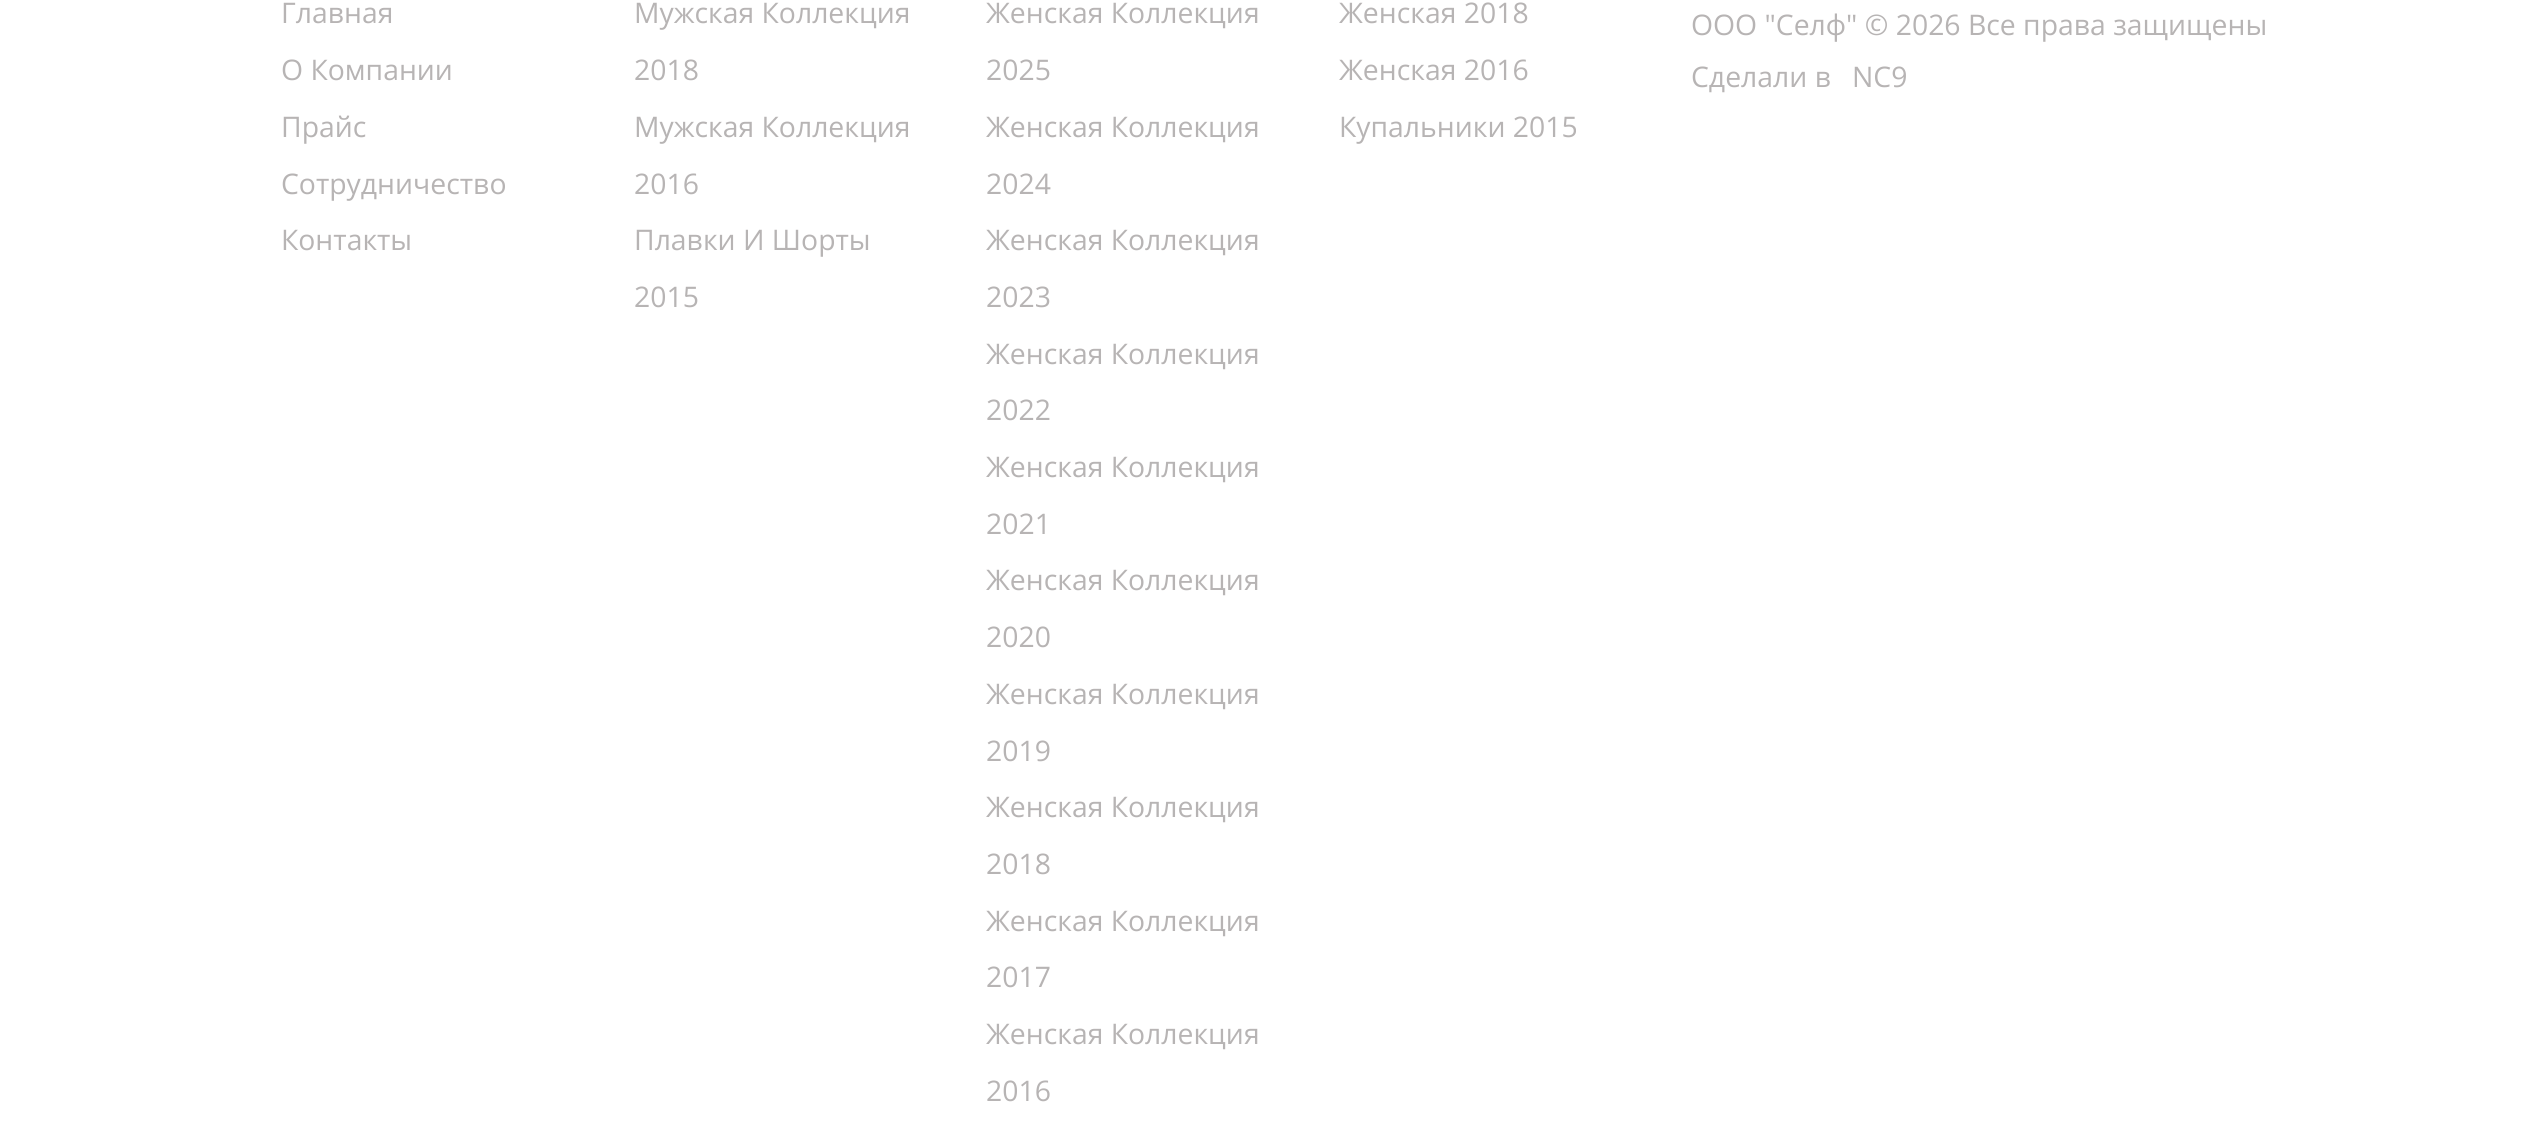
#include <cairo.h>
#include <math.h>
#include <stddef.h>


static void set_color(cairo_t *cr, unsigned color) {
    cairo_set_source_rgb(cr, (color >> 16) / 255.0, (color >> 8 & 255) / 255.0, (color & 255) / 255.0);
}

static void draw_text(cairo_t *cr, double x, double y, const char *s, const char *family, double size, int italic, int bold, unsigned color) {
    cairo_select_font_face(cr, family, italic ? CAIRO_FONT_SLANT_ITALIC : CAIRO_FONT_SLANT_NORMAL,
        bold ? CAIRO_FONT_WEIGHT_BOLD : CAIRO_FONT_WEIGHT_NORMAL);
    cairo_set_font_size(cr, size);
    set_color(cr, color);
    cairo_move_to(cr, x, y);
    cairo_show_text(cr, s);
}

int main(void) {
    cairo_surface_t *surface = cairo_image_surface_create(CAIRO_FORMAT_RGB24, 2541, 1128);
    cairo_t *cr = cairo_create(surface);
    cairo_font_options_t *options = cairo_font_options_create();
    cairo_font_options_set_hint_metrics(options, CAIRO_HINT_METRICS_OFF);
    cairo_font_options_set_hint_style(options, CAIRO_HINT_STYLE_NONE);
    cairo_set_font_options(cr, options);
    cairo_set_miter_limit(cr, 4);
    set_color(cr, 0xFFFFFF);
    cairo_paint(cr);
    draw_text(cr, 281, 23, "Главная", "Open Sans", 28.35, 0, 0, 0xB7B4B4);
    draw_text(cr, 281, 80, "О Компании", "Open Sans", 28.35, 0, 0, 0xB7B4B4);
    draw_text(cr, 281, 137, "Прайс", "Open Sans", 28.35, 0, 0, 0xB7B4B4);
    draw_text(cr, 281, 194, "Сотрудничество", "Open Sans", 28.35, 0, 0, 0xB7B4B4);
    draw_text(cr, 281, 250, "Контакты", "Open Sans", 28.35, 0, 0, 0xB7B4B4);
    draw_text(cr, 634, 23, "Мужская Коллекция", "Open Sans", 28.35, 0, 0, 0xB7B4B4);
    draw_text(cr, 634, 80, "2018", "Open Sans", 28.35, 0, 0, 0xB7B4B4);
    draw_text(cr, 634, 137, "Мужская Коллекция", "Open Sans", 28.35, 0, 0, 0xB7B4B4);
    draw_text(cr, 634, 194, "2016", "Open Sans", 28.35, 0, 0, 0xB7B4B4);
    draw_text(cr, 634, 250, "Плавки И Шорты", "Open Sans", 28.35, 0, 0, 0xB7B4B4);
    draw_text(cr, 634, 307, "2015", "Open Sans", 28.35, 0, 0, 0xB7B4B4);
    draw_text(cr, 986, 23, "Женская Коллекция", "Open Sans", 28.35, 0, 0, 0xB7B4B4);
    draw_text(cr, 986, 80, "2025", "Open Sans", 28.35, 0, 0, 0xB7B4B4);
    draw_text(cr, 986, 137, "Женская Коллекция", "Open Sans", 28.35, 0, 0, 0xB7B4B4);
    draw_text(cr, 986, 194, "2024", "Open Sans", 28.35, 0, 0, 0xB7B4B4);
    draw_text(cr, 986, 250, "Женская Коллекция", "Open Sans", 28.35, 0, 0, 0xB7B4B4);
    draw_text(cr, 986, 307, "2023", "Open Sans", 28.35, 0, 0, 0xB7B4B4);
    draw_text(cr, 986, 364, "Женская Коллекция", "Open Sans", 28.35, 0, 0, 0xB7B4B4);
    draw_text(cr, 986, 420, "2022", "Open Sans", 28.35, 0, 0, 0xB7B4B4);
    draw_text(cr, 986, 477, "Женская Коллекция", "Open Sans", 28.35, 0, 0, 0xB7B4B4);
    draw_text(cr, 986, 534, "2021", "Open Sans", 28.35, 0, 0, 0xB7B4B4);
    draw_text(cr, 986, 590, "Женская Коллекция", "Open Sans", 28.35, 0, 0, 0xB7B4B4);
    draw_text(cr, 986, 647, "2020", "Open Sans", 28.35, 0, 0, 0xB7B4B4);
    draw_text(cr, 986, 704, "Женская Коллекция", "Open Sans", 28.35, 0, 0, 0xB7B4B4);
    draw_text(cr, 986, 761, "2019", "Open Sans", 28.35, 0, 0, 0xB7B4B4);
    draw_text(cr, 986, 817, "Женская Коллекция", "Open Sans", 28.35, 0, 0, 0xB7B4B4);
    draw_text(cr, 986, 874, "2018", "Open Sans", 28.35, 0, 0, 0xB7B4B4);
    draw_text(cr, 986, 931, "Женская Коллекция", "Open Sans", 28.35, 0, 0, 0xB7B4B4);
    draw_text(cr, 986, 987, "2017", "Open Sans", 28.35, 0, 0, 0xB7B4B4);
    draw_text(cr, 986, 1044, "Женская Коллекция", "Open Sans", 28.35, 0, 0, 0xB7B4B4);
    draw_text(cr, 986, 1101, "2016", "Open Sans", 28.35, 0, 0, 0xB7B4B4);
    draw_text(cr, 1339, 23, "Женская 2018", "Open Sans", 28.35, 0, 0, 0xB7B4B4);
    draw_text(cr, 1339, 80, "Женская 2016", "Open Sans", 28.35, 0, 0, 0xB7B4B4);
    draw_text(cr, 1339, 137, "Купальники 2015", "Open Sans", 28.35, 0, 0, 0xB7B4B4);
    draw_text(cr, 1691, 35, "ООО \"Селф\" © 2026 Все права защищены", "Open Sans", 28.35, 0, 0, 0xB7B4B4);
    draw_text(cr, 1691, 87, "Сделали в", "Open Sans", 28.35, 0, 0, 0xB7B4B4);
    draw_text(cr, 1852, 87, "NC9", "Open Sans", 28.35, 0, 0, 0xB7B4B4);
    cairo_surface_write_to_png(surface, "output.png");
    cairo_font_options_destroy(options);
    cairo_destroy(cr);
    cairo_surface_destroy(surface);
    return 0;
}
